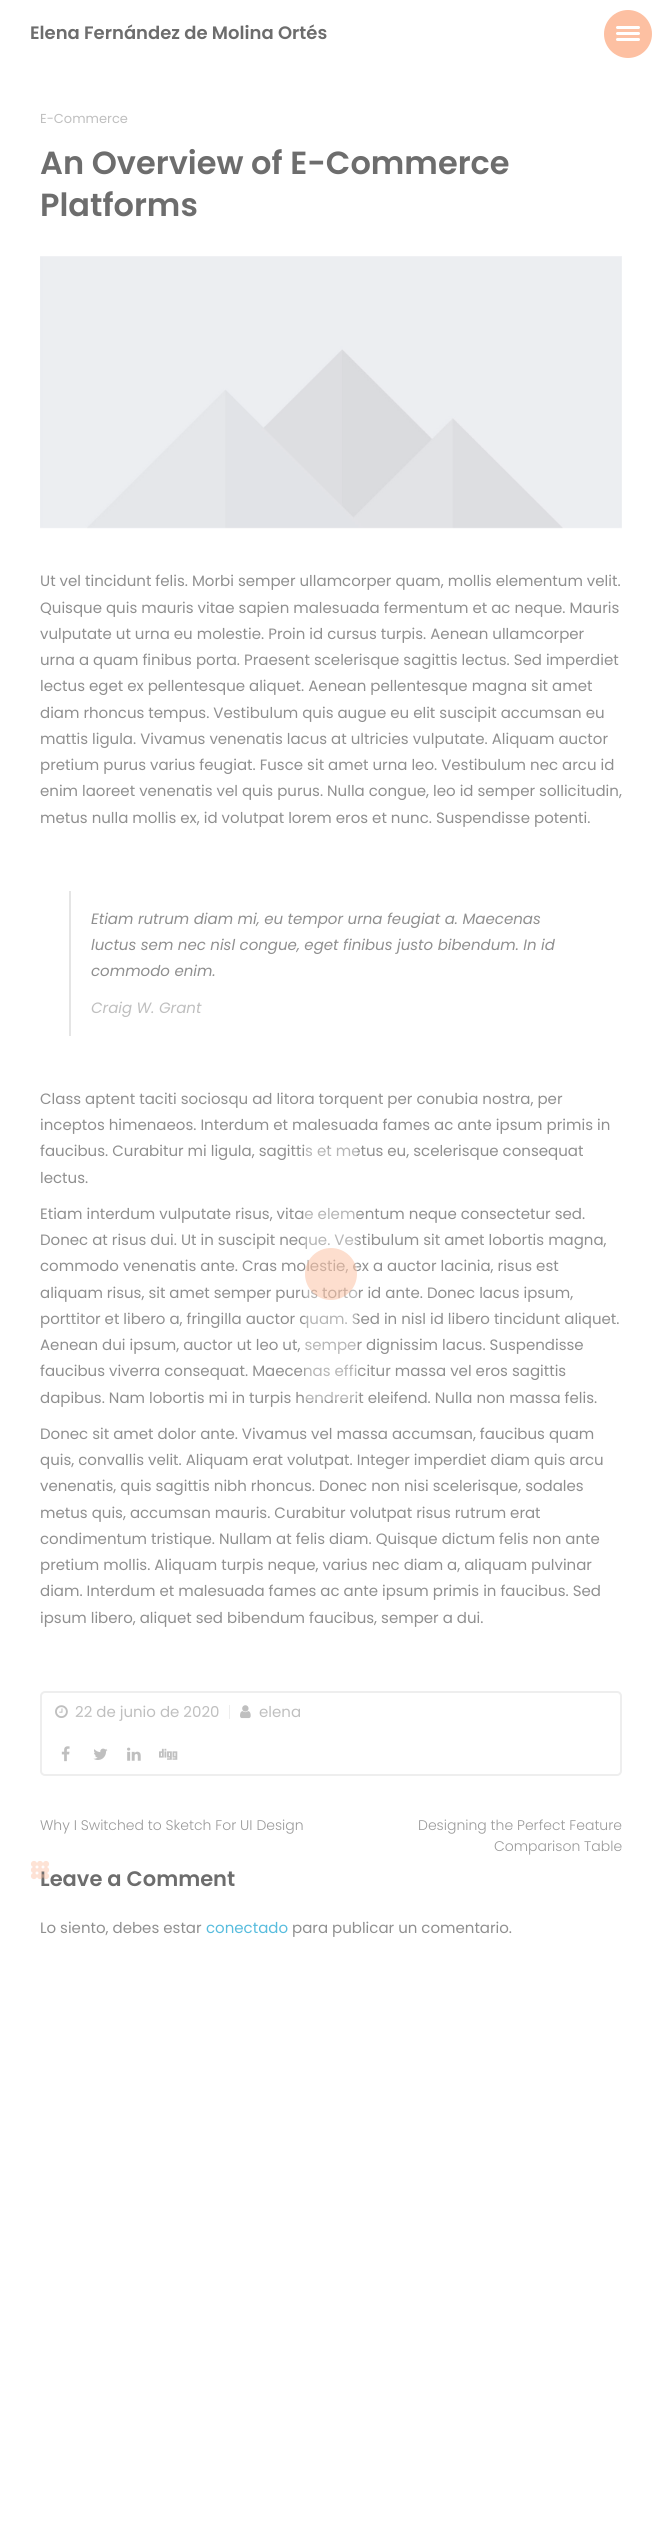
#include <cairo.h>
#include <math.h>
#include <stddef.h>


static void set_color(cairo_t *cr, unsigned color) {
    cairo_set_source_rgb(cr, (color >> 16) / 255.0, (color >> 8 & 255) / 255.0, (color & 255) / 255.0);
}

static void draw_text(cairo_t *cr, double x, double y, const char *s, const char *family, double size, int italic, int bold, unsigned color) {
    cairo_select_font_face(cr, family, italic ? CAIRO_FONT_SLANT_ITALIC : CAIRO_FONT_SLANT_NORMAL,
        bold ? CAIRO_FONT_WEIGHT_BOLD : CAIRO_FONT_WEIGHT_NORMAL);
    cairo_set_font_size(cr, size);
    set_color(cr, color);
    cairo_move_to(cr, x, y);
    cairo_show_text(cr, s);
}

static void fill_rect(cairo_t *cr, double x, double y, double w, double h, unsigned color) {
    set_color(cr, color);
    cairo_rectangle(cr, x, y, w, h);
    cairo_fill(cr);
}

static void rounded_rect(cairo_t *cr, double x, double y, double w, double h, double r) {
    cairo_new_sub_path(cr);
    cairo_arc(cr, x + w - r, y + h - r, r, 0, M_PI / 2);
    cairo_arc(cr, x + r, y + h - r, r, M_PI / 2, M_PI);
    cairo_arc(cr, x + r, y + r, r, M_PI, 1.5 * M_PI);
    cairo_arc(cr, x + w - r, y + r, r, 1.5 * M_PI, 2 * M_PI);
    cairo_close_path(cr);
}

static void draw_image(cairo_t *cr, const char *path, double x, double y, double w, double h) {
    cairo_surface_t *image = cairo_image_surface_create_from_png(path);
    cairo_save(cr);
    cairo_set_source_surface(cr, image, x, y);
    cairo_rectangle(cr, x, y, w, h);
    cairo_fill(cr);
    cairo_restore(cr);
    cairo_surface_destroy(image);
}

int main(void) {
    cairo_surface_t *surface = cairo_image_surface_create(CAIRO_FORMAT_RGB24, 662, 2548);
    cairo_t *cr = cairo_create(surface);
    cairo_font_options_t *options = cairo_font_options_create();
    cairo_font_options_set_hint_metrics(options, CAIRO_HINT_METRICS_OFF);
    cairo_font_options_set_hint_style(options, CAIRO_HINT_STYLE_NONE);
    cairo_set_font_options(cr, options);
    cairo_set_miter_limit(cr, 4);
    set_color(cr, 0xFFFFFF);
    cairo_paint(cr);
    draw_text(cr, 30, 39, "Elena Fernández de Molina Ortés", "Poppins SemiBold", 18, 0, 0, 0x6D6D6D);
    set_color(cr, 0xFDC0A2);
    cairo_new_path(cr);
    cairo_arc(cr, 628, 34, 24, 0, 2 * M_PI);
    cairo_fill(cr);
    set_color(cr, 0xFFFFFF);
    rounded_rect(cr, 616, 26, 24, 3, 1.5);
    cairo_fill(cr);
    rounded_rect(cr, 616, 32, 24, 3, 1.5);
    cairo_fill(cr);
    rounded_rect(cr, 616, 38, 24, 3, 1.5);
    cairo_fill(cr);
    draw_text(cr, 40, 123, "E-Commerce", "Poppins", 13, 0, 0, 0xBFBFBF);
    draw_text(cr, 40, 174, "An Overview of E-Commerce", "Poppins SemiBold", 32, 0, 0, 0x6D6D6D);
    draw_text(cr, 40, 216, "Platforms", "Poppins SemiBold", 32, 0, 0, 0x6D6D6D);
    draw_image(cr, "assets/img1.png", 40, 256, 582, 272);
    draw_image(cr, "assets/img2.png", 40, 256, 582, 273);
    draw_text(cr, 40, 586, "Ut vel tincidunt felis. Morbi semper ullamcorper quam, mollis elementum velit.", "Poppins", 15, 0, 0, 0x8F8F8F);
    draw_text(cr, 40, 613, "Quisque quis mauris vitae sapien malesuada fermentum et ac neque. Mauris", "Poppins", 15, 0, 0, 0x8F8F8F);
    draw_text(cr, 40, 639, "vulputate ut urna eu molestie. Proin id cursus turpis. Aenean ullamcorper", "Poppins", 15, 0, 0, 0x8F8F8F);
    draw_text(cr, 40, 665, "urna a quam finibus porta. Praesent scelerisque sagittis lectus. Sed imperdiet", "Poppins", 15, 0, 0, 0x8F8F8F);
    draw_text(cr, 40, 691, "lectus eget ex pellentesque aliquet. Aenean pellentesque magna sit amet", "Poppins", 15, 0, 0, 0x8F8F8F);
    draw_text(cr, 40, 718, "diam rhoncus tempus. Vestibulum quis augue eu elit suscipit accumsan eu", "Poppins", 15, 0, 0, 0x8F8F8F);
    draw_text(cr, 40, 744, "mattis ligula. Vivamus venenatis lacus at ultricies vulputate. Aliquam auctor", "Poppins", 15, 0, 0, 0x8F8F8F);
    draw_text(cr, 40, 770, "pretium purus varius feugiat. Fusce sit amet urna leo. Vestibulum nec arcu id", "Poppins", 15, 0, 0, 0x8F8F8F);
    draw_text(cr, 40, 796, "enim laoreet venenatis vel quis purus. Nulla congue, leo id semper sollicitudin,", "Poppins", 15, 0, 0, 0x8F8F8F);
    draw_text(cr, 40, 823, "metus nulla mollis ex, id volutpat lorem eros et nunc. Suspendisse potenti.", "Poppins", 15, 0, 0, 0x8F8F8F);
    fill_rect(cr, 69, 891, 2, 145, 0xE5E5E5);
    draw_text(cr, 91, 924, "Etiam rutrum diam mi, eu tempor urna feugiat a. Maecenas", "Poppins", 15, 1, 0, 0x8F8F8F);
    draw_text(cr, 91, 950, "luctus sem nec nisl congue, eget finibus justo bibendum. In id", "Poppins", 15, 1, 0, 0x8F8F8F);
    draw_text(cr, 91, 976, "commodo enim.", "Poppins", 15, 1, 0, 0x8F8F8F);
    draw_text(cr, 91, 1013, "Craig W. Grant", "Poppins", 15, 1, 0, 0xBFBFBF);
    draw_text(cr, 40, 1104, "Class aptent taciti sociosqu ad litora torquent per conubia nostra, per", "Poppins", 15, 0, 0, 0x8F8F8F);
    draw_text(cr, 40, 1130, "inceptos himenaeos. Interdum et malesuada fames ac ante ipsum primis in", "Poppins", 15, 0, 0, 0x8F8F8F);
    draw_text(cr, 40, 1156, "faucibus. Curabitur mi ligula, sagittis et metus eu, scelerisque consequat", "Poppins", 15, 0, 0, 0x8F8F8F);
    draw_text(cr, 40, 1183, "lectus.", "Poppins", 15, 0, 0, 0x8F8F8F);
    draw_text(cr, 40, 1219, "Etiam interdum vulputate risus, vitae elementum neque consectetur sed.", "Poppins", 15, 0, 0, 0x8F8F8F);
    draw_text(cr, 40, 1245, "Donec at risus dui. Ut in suscipit neque. Vestibulum sit amet lobortis magna,", "Poppins", 15, 0, 0, 0x8F8F8F);
    draw_text(cr, 40, 1271, "commodo venenatis ante. Cras molestie, ex a auctor lacinia, risus est", "Poppins", 15, 0, 0, 0x8F8F8F);
    draw_text(cr, 40, 1298, "aliquam risus, sit amet semper purus tortor id ante. Donec lacus ipsum,", "Poppins", 15, 0, 0, 0x8F8F8F);
    draw_text(cr, 40, 1324, "porttitor et libero a, fringilla auctor quam. Sed in nisl id libero tincidunt aliquet.", "Poppins", 15, 0, 0, 0x8F8F8F);
    draw_text(cr, 40, 1350, "Aenean dui ipsum, auctor ut leo ut, semper dignissim lacus. Suspendisse", "Poppins", 15, 0, 0, 0x8F8F8F);
    draw_text(cr, 40, 1376, "faucibus viverra consequat. Maecenas efficitur massa vel eros sagittis", "Poppins", 15, 0, 0, 0x8F8F8F);
    draw_text(cr, 40, 1403, "dapibus. Nam lobortis mi in turpis hendrerit eleifend. Nulla non massa felis.", "Poppins", 15, 0, 0, 0x8F8F8F);
    draw_text(cr, 40, 1439, "Donec sit amet dolor ante. Vivamus vel massa accumsan, faucibus quam", "Poppins", 15, 0, 0, 0x8F8F8F);
    draw_text(cr, 40, 1465, "quis, convallis velit. Aliquam erat volutpat. Integer imperdiet diam quis arcu", "Poppins", 15, 0, 0, 0x8F8F8F);
    draw_text(cr, 40, 1491, "venenatis, quis sagittis nibh rhoncus. Donec non nisi scelerisque, sodales", "Poppins", 15, 0, 0, 0x8F8F8F);
    draw_text(cr, 40, 1518, "metus quis, accumsan mauris. Curabitur volutpat risus rutrum erat", "Poppins", 15, 0, 0, 0x8F8F8F);
    draw_text(cr, 40, 1544, "condimentum tristique. Nullam at felis diam. Quisque dictum felis non ante", "Poppins", 15, 0, 0, 0x8F8F8F);
    draw_text(cr, 40, 1570, "pretium mollis. Aliquam turpis neque, varius nec diam a, aliquam pulvinar", "Poppins", 15, 0, 0, 0x8F8F8F);
    draw_text(cr, 40, 1596, "diam. Interdum et malesuada fames ac ante ipsum primis in faucibus. Sed", "Poppins", 15, 0, 0, 0x8F8F8F);
    draw_text(cr, 40, 1623, "ipsum libero, aliquet sed bibendum faucibus, semper a dui.", "Poppins", 15, 0, 0, 0x8F8F8F);
    rounded_rect(cr, 41, 1692, 580, 83, 4);
    set_color(cr, 0xEEEEEE);
    cairo_stroke(cr);
    draw_image(cr, "assets/img3.png", 55, 1705, 13, 13);
    draw_text(cr, 75, 1717, "22 de junio de 2020", "Poppins", 15, 0, 0, 0xBFBFBF);
    fill_rect(cr, 229, 1705, 1, 14, 0xEEEEEE);
    draw_image(cr, "assets/img4.png", 240, 1705, 11, 14);
    draw_text(cr, 259, 1717, "elena", "Poppins", 15, 0, 0, 0xBFBFBF);
    draw_image(cr, "assets/img5.png", 61, 1746, 9, 16);
    draw_image(cr, "assets/img6.png", 93, 1748, 15, 12);
    draw_image(cr, "assets/img7.png", 127, 1747, 14, 14);
    draw_image(cr, "assets/img8.png", 159, 1748, 19, 12);
    draw_text(cr, 40, 1830, "Why I Switched to Sketch For UI Design", "Poppins Light", 14, 0, 0, 0x9A9A9A);
    draw_text(cr, 418, 1830, "Designing the Perfect Feature", "Poppins Light", 14, 0, 0, 0x9A9A9A);
    draw_text(cr, 494, 1851, "Comparison Table", "Poppins Light", 14, 0, 0, 0x9A9A9A);
    cairo_new_path(cr);
    cairo_move_to(cr, 34, 1864);
    cairo_line_to(cr, 46.2, 1864);
    set_color(cr, 0xFEE3D5);
    cairo_set_line_width(cr, 6.2);
    cairo_set_line_cap(cr, CAIRO_LINE_CAP_ROUND);
    cairo_set_dash(cr, (double[]){0, 6}, 2, 0);
    cairo_stroke(cr);
    draw_text(cr, 40, 1886, "Leave a Comment", "Poppins SemiBold", 21, 0, 0, 0x6D6D6D);
    cairo_new_path(cr);
    cairo_move_to(cr, 34, 1870);
    cairo_line_to(cr, 46.2, 1870);
    cairo_set_source_rgba(cr, 0.992, 0.753, 0.635, 0.45);
    cairo_stroke(cr);
    cairo_new_path(cr);
    cairo_move_to(cr, 34, 1876);
    cairo_line_to(cr, 46.2, 1876);
    cairo_stroke(cr);
    draw_text(cr, 40, 1933, "Lo siento, debes estar", "Poppins", 15, 0, 0, 0x8F8F8F);
    draw_text(cr, 206, 1933, "conectado", "Poppins", 15, 0, 0, 0x57BCDD);
    draw_text(cr, 292, 1933, "para publicar un comentario.", "Poppins", 15, 0, 0, 0x8F8F8F);
    cairo_set_source_rgba(cr, 1, 1, 1, 0.34);
    cairo_rectangle(cr, 305, 1148, 52, 252);
    cairo_fill(cr);
    cairo_set_source_rgba(cr, 0.988, 0.627, 0.447, 0.34);
    cairo_arc(cr, 331, 1274, 26, 0, 2 * M_PI);
    cairo_fill(cr);
    cairo_surface_write_to_png(surface, "output.png");
    cairo_font_options_destroy(options);
    cairo_destroy(cr);
    cairo_surface_destroy(surface);
    return 0;
}
